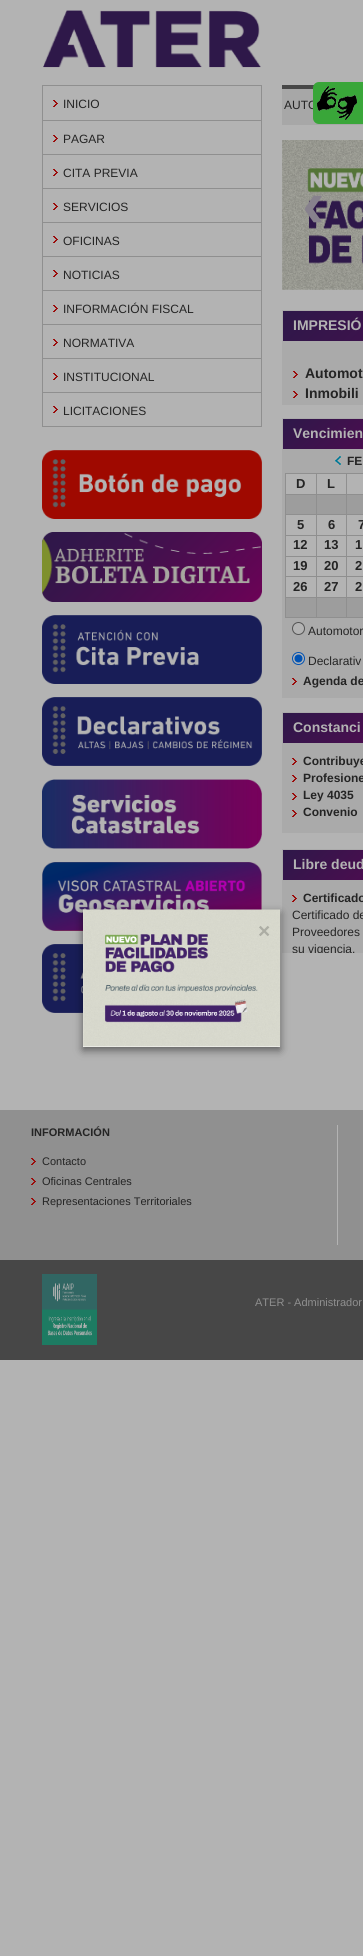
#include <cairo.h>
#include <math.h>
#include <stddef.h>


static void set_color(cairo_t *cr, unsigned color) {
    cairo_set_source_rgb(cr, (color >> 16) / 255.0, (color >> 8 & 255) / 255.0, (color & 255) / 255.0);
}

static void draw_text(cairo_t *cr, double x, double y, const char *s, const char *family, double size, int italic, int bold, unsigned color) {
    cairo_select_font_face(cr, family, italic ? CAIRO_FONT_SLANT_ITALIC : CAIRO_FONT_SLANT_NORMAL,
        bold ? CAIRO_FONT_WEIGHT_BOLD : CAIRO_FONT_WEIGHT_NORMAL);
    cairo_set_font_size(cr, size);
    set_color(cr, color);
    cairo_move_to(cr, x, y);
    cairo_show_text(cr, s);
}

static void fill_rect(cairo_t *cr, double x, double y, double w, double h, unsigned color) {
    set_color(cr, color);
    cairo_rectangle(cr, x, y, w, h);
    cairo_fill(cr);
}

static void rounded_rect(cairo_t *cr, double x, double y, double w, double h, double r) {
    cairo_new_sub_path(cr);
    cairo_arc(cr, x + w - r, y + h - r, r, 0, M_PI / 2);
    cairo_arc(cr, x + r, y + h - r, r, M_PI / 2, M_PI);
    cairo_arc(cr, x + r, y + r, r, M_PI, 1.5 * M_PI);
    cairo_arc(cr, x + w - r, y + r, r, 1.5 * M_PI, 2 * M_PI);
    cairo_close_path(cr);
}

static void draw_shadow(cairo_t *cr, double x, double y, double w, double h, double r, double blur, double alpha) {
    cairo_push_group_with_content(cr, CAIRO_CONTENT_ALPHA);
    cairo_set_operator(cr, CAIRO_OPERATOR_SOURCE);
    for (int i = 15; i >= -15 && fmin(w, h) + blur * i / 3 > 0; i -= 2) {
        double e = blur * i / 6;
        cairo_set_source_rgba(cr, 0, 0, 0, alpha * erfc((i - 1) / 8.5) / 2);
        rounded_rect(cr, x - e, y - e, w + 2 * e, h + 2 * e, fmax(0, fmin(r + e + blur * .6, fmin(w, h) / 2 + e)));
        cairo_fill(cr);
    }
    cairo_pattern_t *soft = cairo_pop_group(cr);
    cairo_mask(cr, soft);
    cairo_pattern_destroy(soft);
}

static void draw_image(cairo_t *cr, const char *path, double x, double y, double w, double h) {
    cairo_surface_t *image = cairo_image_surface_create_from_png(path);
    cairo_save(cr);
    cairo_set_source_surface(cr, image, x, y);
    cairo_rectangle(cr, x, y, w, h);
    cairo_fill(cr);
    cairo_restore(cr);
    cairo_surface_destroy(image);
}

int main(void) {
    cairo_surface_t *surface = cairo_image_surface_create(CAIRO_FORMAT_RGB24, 363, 1956);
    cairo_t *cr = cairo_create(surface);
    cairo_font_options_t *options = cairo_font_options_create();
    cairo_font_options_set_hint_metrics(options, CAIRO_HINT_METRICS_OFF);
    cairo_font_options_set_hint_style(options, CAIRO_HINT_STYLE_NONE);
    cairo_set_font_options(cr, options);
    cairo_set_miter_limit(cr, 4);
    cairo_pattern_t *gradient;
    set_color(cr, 0xB3B3B3);
    cairo_paint(cr);
    fill_rect(cr, 282, 89, 81, 36, 0xA7A7A7);
    fill_rect(cr, 282, 85, 32, 4, 0x474747);
    draw_text(cr, 284, 109, "AUTO", "Liberation Sans", 12, 0, 0, 0x242424);
    set_color(cr, 0x39A639);
    rounded_rect(cr, 313, 82, 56, 42, 6);
    cairo_fill(cr);
    draw_image(cr, "assets/img1.png", 317, 86, 40, 34);
    draw_image(cr, "assets/img2.png", 43, 10, 218, 58);
    cairo_rectangle(cr, 42.5, 85.5, 219, 341);
    set_color(cr, 0x8F8F8F);
    cairo_set_line_width(cr, 1);
    cairo_stroke(cr);
    draw_image(cr, "assets/img3.png", 53, 100, 5, 7);
    fill_rect(cr, 43, 120, 218, 1, 0x8F8F8F);
    draw_text(cr, 63, 108, "INICIO", "Liberation Sans", 12, 0, 0, 0x242424);
    draw_image(cr, "assets/img3.png", 53, 135, 5, 7);
    draw_text(cr, 63, 143, "PAGAR", "Liberation Sans", 12, 0, 0, 0x242424);
    draw_image(cr, "assets/img3.png", 53, 169, 5, 7);
    fill_rect(cr, 43, 154, 218, 1, 0x8F8F8F);
    draw_text(cr, 63, 177, "CITA PREVIA", "Liberation Sans", 12, 0, 0, 0x242424);
    draw_image(cr, "assets/img3.png", 53, 203, 5, 7);
    fill_rect(cr, 43, 188, 218, 1, 0x8F8F8F);
    draw_text(cr, 63, 211, "SERVICIOS", "Liberation Sans", 12, 0, 0, 0x242424);
    draw_image(cr, "assets/img3.png", 53, 236, 5, 7);
    fill_rect(cr, 43, 222, 218, 1, 0x8F8F8F);
    fill_rect(cr, 43, 256, 218, 1, 0x8F8F8F);
    draw_text(cr, 63, 245, "OFICINAS", "Liberation Sans", 12, 0, 0, 0x242424);
    draw_image(cr, "assets/img3.png", 53, 270, 5, 7);
    fill_rect(cr, 43, 290, 218, 1, 0x8F8F8F);
    draw_text(cr, 63, 279, "NOTICIAS", "Liberation Sans", 12, 0, 0, 0x242424);
    draw_image(cr, "assets/img3.png", 53, 305, 5, 7);
    draw_text(cr, 63, 313, "INFORMACIÓN FISCAL", "Liberation Sans", 12, 0, 0, 0x242424);
    draw_image(cr, "assets/img3.png", 53, 339, 5, 7);
    fill_rect(cr, 43, 324, 218, 1, 0x8F8F8F);
    draw_text(cr, 63, 347, "NORMATIVA", "Liberation Sans", 12, 0, 0, 0x242424);
    draw_image(cr, "assets/img3.png", 53, 373, 5, 7);
    fill_rect(cr, 43, 358, 218, 1, 0x8F8F8F);
    draw_text(cr, 63, 381, "INSTITUCIONAL", "Liberation Sans", 12, 0, 0, 0x242424);
    draw_image(cr, "assets/img3.png", 53, 406, 5, 7);
    fill_rect(cr, 43, 392, 218, 1, 0x8F8F8F);
    draw_text(cr, 63, 415, "LICITACIONES", "Liberation Sans", 12, 0, 0, 0x242424);
    draw_image(cr, "assets/img4.png", 42, 450, 220, 69);
    draw_image(cr, "assets/img5.png", 42, 532, 220, 70);
    draw_image(cr, "assets/img6.png", 42, 615, 220, 69);
    draw_image(cr, "assets/img7.png", 42, 697, 220, 69);
    draw_image(cr, "assets/img8.png", 42, 779, 220, 70);
    draw_image(cr, "assets/img9.png", 42, 862, 220, 69);
    draw_image(cr, "assets/img10.png", 42, 944, 41, 69);
    draw_image(cr, "assets/img11.png", 282, 140, 81, 150);
    draw_text(cr, 302, 227, "‹", "Liberation Sans", 68, 0, 1, 0x87818D);
    fill_rect(cr, 282, 310, 81, 95, 0xAAAAAA);
    gradient = cairo_pattern_create_linear(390, 204, 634, 448);
    cairo_pattern_add_color_stop_rgba(gradient, 0, 0.18, 0.094, 0.286, 1);
    cairo_pattern_add_color_stop_rgba(gradient, 1, 0.427, 0.004, 0.341, 1);
    cairo_set_source(cr, gradient);
    cairo_pattern_destroy(gradient);
    cairo_rectangle(cr, 283, 311, 80, 30);
    cairo_fill(cr);
    draw_text(cr, 293, 330, "IMPRESIÓ", "Liberation Sans", 14, 0, 1, 0xB3B3B3);
    draw_image(cr, "assets/img12.png", 293, 371, 5, 7);
    draw_text(cr, 305, 378, "Automot", "Liberation Sans", 14, 0, 1, 0x242424);
    draw_image(cr, "assets/img12.png", 293, 391, 5, 7);
    draw_text(cr, 305, 398, "Inmobili", "Liberation Sans", 14, 0, 1, 0x242424);
    fill_rect(cr, 282, 418, 81, 280, 0xAAAAAA);
    gradient = cairo_pattern_create_linear(330, 372, 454, 496);
    cairo_pattern_add_color_stop_rgba(gradient, 0, 0.18, 0.094, 0.286, 1);
    cairo_pattern_add_color_stop_rgba(gradient, 1, 0.427, 0.004, 0.341, 1);
    cairo_set_source(cr, gradient);
    cairo_pattern_destroy(gradient);
    cairo_rectangle(cr, 283, 419, 80, 30);
    cairo_fill(cr);
    draw_text(cr, 293, 438, "Vencimien", "Liberation Sans", 14, 0, 1, 0xB3B3B3);
    draw_image(cr, "assets/img13.png", 335, 456, 6, 9);
    draw_text(cr, 347, 465, "FE", "Liberation Sans", 12, 0, 1, 0x242424);
    fill_rect(cr, 285, 473, 78, 1, 0x8F8F8F);
    fill_rect(cr, 285, 617, 78, 1, 0x8F8F8F);
    fill_rect(cr, 285, 473, 1, 145, 0x8F8F8F);
    fill_rect(cr, 286, 474, 77, 20, 0xB3B3B3);
    draw_text(cr, 296, 488, "D", "Liberation Sans", 13, 0, 1, 0x242424);
    fill_rect(cr, 346, 494, 17, 1, 0x8F8F8F);
    fill_rect(cr, 346, 514, 17, 1, 0x8F8F8F);
    fill_rect(cr, 346, 535, 17, 1, 0x8F8F8F);
    fill_rect(cr, 346, 556, 17, 1, 0x8F8F8F);
    fill_rect(cr, 346, 576, 17, 1, 0x8F8F8F);
    fill_rect(cr, 346, 597, 17, 1, 0x8F8F8F);
    fill_rect(cr, 346, 597, 1, 21, 0x8F8F8F);
    fill_rect(cr, 316, 597, 31, 1, 0x8F8F8F);
    fill_rect(cr, 346, 576, 1, 22, 0x8F8F8F);
    fill_rect(cr, 316, 576, 31, 1, 0x8F8F8F);
    fill_rect(cr, 346, 556, 1, 21, 0x8F8F8F);
    fill_rect(cr, 316, 556, 31, 1, 0x8F8F8F);
    fill_rect(cr, 346, 535, 1, 22, 0x8F8F8F);
    fill_rect(cr, 316, 535, 31, 1, 0x8F8F8F);
    fill_rect(cr, 346, 514, 1, 22, 0x8F8F8F);
    fill_rect(cr, 316, 514, 31, 1, 0x8F8F8F);
    fill_rect(cr, 346, 494, 1, 21, 0x8F8F8F);
    fill_rect(cr, 316, 494, 31, 1, 0x8F8F8F);
    fill_rect(cr, 316, 597, 1, 21, 0x8F8F8F);
    fill_rect(cr, 285, 597, 32, 1, 0x8F8F8F);
    fill_rect(cr, 316, 576, 1, 22, 0x8F8F8F);
    fill_rect(cr, 285, 576, 32, 1, 0x8F8F8F);
    fill_rect(cr, 316, 556, 1, 21, 0x8F8F8F);
    fill_rect(cr, 285, 556, 32, 1, 0x8F8F8F);
    fill_rect(cr, 316, 535, 1, 22, 0x8F8F8F);
    fill_rect(cr, 285, 535, 32, 1, 0x8F8F8F);
    fill_rect(cr, 316, 514, 1, 22, 0x8F8F8F);
    fill_rect(cr, 285, 514, 32, 1, 0x8F8F8F);
    fill_rect(cr, 316, 494, 1, 21, 0x8F8F8F);
    fill_rect(cr, 285, 494, 32, 1, 0x8F8F8F);
    fill_rect(cr, 316, 473, 1, 22, 0x8F8F8F);
    draw_text(cr, 327, 488, "L", "Liberation Sans", 13, 0, 1, 0x242424);
    fill_rect(cr, 346, 473, 1, 22, 0x8F8F8F);
    fill_rect(cr, 286, 495, 30, 19, 0x9D9D9D);
    fill_rect(cr, 317, 495, 29, 19, 0x9D9D9D);
    fill_rect(cr, 347, 495, 16, 19, 0x9D9D9D);
    fill_rect(cr, 286, 515, 30, 20, 0xB3B3B3);
    draw_text(cr, 297, 529, "5", "Liberation Sans", 13, 0, 1, 0x242424);
    fill_rect(cr, 317, 515, 29, 20, 0xB3B3B3);
    draw_text(cr, 328, 529, "6", "Liberation Sans", 13, 0, 1, 0x242424);
    fill_rect(cr, 347, 515, 16, 20, 0xB3B3B3);
    draw_text(cr, 358, 529, "7", "Liberation Sans", 13, 0, 1, 0x242424);
    fill_rect(cr, 286, 536, 30, 20, 0xB3B3B3);
    draw_text(cr, 293, 549, "12", "Liberation Sans", 13, 0, 1, 0x242424);
    fill_rect(cr, 317, 536, 29, 20, 0xB3B3B3);
    draw_text(cr, 324, 549, "13", "Liberation Sans", 13, 0, 1, 0x242424);
    fill_rect(cr, 347, 536, 16, 20, 0xB3B3B3);
    draw_text(cr, 355, 549, "1", "Liberation Sans", 13, 0, 1, 0x242424);
    fill_rect(cr, 286, 557, 30, 19, 0xB3B3B3);
    draw_text(cr, 293, 570, "19", "Liberation Sans", 13, 0, 1, 0x242424);
    fill_rect(cr, 317, 557, 29, 19, 0xB3B3B3);
    draw_text(cr, 324, 570, "20", "Liberation Sans", 13, 0, 1, 0x242424);
    fill_rect(cr, 347, 557, 16, 19, 0xB3B3B3);
    draw_text(cr, 355, 570, "2", "Liberation Sans", 13, 0, 1, 0x242424);
    fill_rect(cr, 286, 577, 30, 20, 0xB3B3B3);
    draw_text(cr, 293, 591, "26", "Liberation Sans", 13, 0, 1, 0x242424);
    fill_rect(cr, 317, 577, 29, 20, 0xB3B3B3);
    draw_text(cr, 324, 591, "27", "Liberation Sans", 13, 0, 1, 0x242424);
    fill_rect(cr, 347, 577, 16, 20, 0xB3B3B3);
    draw_text(cr, 355, 591, "2", "Liberation Sans", 13, 0, 1, 0x242424);
    fill_rect(cr, 286, 598, 30, 19, 0x9D9D9D);
    fill_rect(cr, 317, 598, 29, 19, 0x9D9D9D);
    fill_rect(cr, 347, 598, 16, 19, 0x9D9D9D);
    set_color(cr, 0xB3B3B3);
    cairo_new_path(cr);
    cairo_arc(cr, 298.5, 628.5, 6, 0, 2 * M_PI);
    cairo_fill_preserve(cr);
    set_color(cr, 0x535353);
    cairo_stroke(cr);
    draw_text(cr, 308, 635, "Automotor", "Liberation Sans", 12, 0, 0, 0x242424);
    set_color(cr, 0xB3B3B3);
    cairo_new_path(cr);
    cairo_arc(cr, 298.5, 658.5, 6, 0, 2 * M_PI);
    cairo_fill_preserve(cr);
    set_color(cr, 0x0052B3);
    cairo_stroke(cr);
    cairo_arc(cr, 298.5, 658.5, 4, 0, 2 * M_PI);
    cairo_fill(cr);
    draw_text(cr, 308, 665, "Declarativ", "Liberation Sans", 12, 0, 0, 0x242424);
    draw_image(cr, "assets/img12.png", 292, 678, 5, 7);
    draw_text(cr, 303, 685, "Agenda de", "Liberation Sans", 12, 0, 1, 0x242424);
    fill_rect(cr, 282, 712, 81, 121, 0xAAAAAA);
    gradient = cairo_pattern_create_linear(330, 666, 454, 790);
    cairo_pattern_add_color_stop_rgba(gradient, 0, 0.18, 0.094, 0.286, 1);
    cairo_pattern_add_color_stop_rgba(gradient, 1, 0.427, 0.004, 0.341, 1);
    cairo_set_source(cr, gradient);
    cairo_pattern_destroy(gradient);
    cairo_rectangle(cr, 283, 713, 80, 30);
    cairo_fill(cr);
    draw_text(cr, 293, 732, "Constanci", "Liberation Sans", 14, 0, 1, 0xB3B3B3);
    draw_image(cr, "assets/img12.png", 292, 758, 5, 7);
    draw_text(cr, 303, 765, "Contribuye", "Liberation Sans", 12, 0, 1, 0x242424);
    draw_image(cr, "assets/img12.png", 292, 775, 5, 7);
    draw_text(cr, 303, 782, "Profesione", "Liberation Sans", 12, 0, 1, 0x242424);
    draw_image(cr, "assets/img12.png", 292, 793, 5, 7);
    draw_text(cr, 303, 799, "Ley 4035", "Liberation Sans", 12, 0, 1, 0x242424);
    draw_image(cr, "assets/img12.png", 292, 810, 5, 7);
    draw_text(cr, 303, 816, "Convenio", "Liberation Sans", 12, 0, 1, 0x242424);
    fill_rect(cr, 282, 849, 81, 104, 0xAAAAAA);
    gradient = cairo_pattern_create_linear(330, 803, 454, 927);
    cairo_pattern_add_color_stop_rgba(gradient, 0, 0.18, 0.094, 0.286, 1);
    cairo_pattern_add_color_stop_rgba(gradient, 1, 0.427, 0.004, 0.341, 1);
    cairo_set_source(cr, gradient);
    cairo_pattern_destroy(gradient);
    cairo_rectangle(cr, 283, 850, 80, 30);
    cairo_fill(cr);
    draw_text(cr, 293, 869, "Libre deud", "Liberation Sans", 14, 0, 1, 0xB3B3B3);
    draw_image(cr, "assets/img12.png", 292, 895, 5, 7);
    draw_text(cr, 303, 902, "Certificado", "Liberation Sans", 12, 0, 1, 0x242424);
    draw_text(cr, 292, 919, "Certificado de", "Liberation Sans", 12, 0, 0, 0x242424);
    draw_text(cr, 292, 936, "Proveedores", "Liberation Sans", 12, 0, 0, 0x242424);
    cairo_save(cr);
    cairo_rectangle(cr, 292, 890, 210, 63);
    cairo_clip(cr);
    draw_text(cr, 292, 953, "su vigencia.", "Liberation Sans", 12, 0, 0, 0x242424);
    cairo_restore(cr);
    fill_rect(cr, 0, 1260, 363, 100, 0x474747);
    fill_rect(cr, 0, 1110, 363, 150, 0x909090);
    fill_rect(cr, 337, 1125, 1, 120, 0xB3B3B3);
    draw_text(cr, 31, 1136, "INFORMACIÓN", "Liberation Sans", 11, 0, 1, 0x242424);
    draw_image(cr, "assets/img14.png", 31, 1158, 5, 7);
    draw_text(cr, 42, 1165, "Contacto", "Liberation Sans", 11, 0, 0, 0x242424);
    draw_image(cr, "assets/img14.png", 31, 1178, 5, 7);
    draw_text(cr, 42, 1185, "Oficinas Centrales", "Liberation Sans", 11, 0, 0, 0x242424);
    draw_image(cr, "assets/img14.png", 31, 1198, 5, 7);
    draw_text(cr, 42, 1205, "Representaciones Territoriales", "Liberation Sans", 11, 0, 0, 0x242424);
    draw_image(cr, "assets/img15.png", 42, 1274, 55, 71);
    draw_text(cr, 255, 1306, "ATER - Administrador", "Liberation Sans", 11, 0, 0, 0x8F8F8F);
    set_color(cr, 0x000000);
    draw_shadow(cr, 83, 913, 197, 137, 0, 4.5, 0.5);
    fill_rect(cr, 83, 910, 197, 137, 0xFFFFFF);
    draw_image(cr, "assets/img16.png", 83, 909, 198, 138);
    draw_text(cr, 258, 938, "×", "Liberation Sans", 21, 0, 1, 0xACADA4);
    cairo_surface_write_to_png(surface, "output.png");
    cairo_font_options_destroy(options);
    cairo_destroy(cr);
    cairo_surface_destroy(surface);
    return 0;
}
